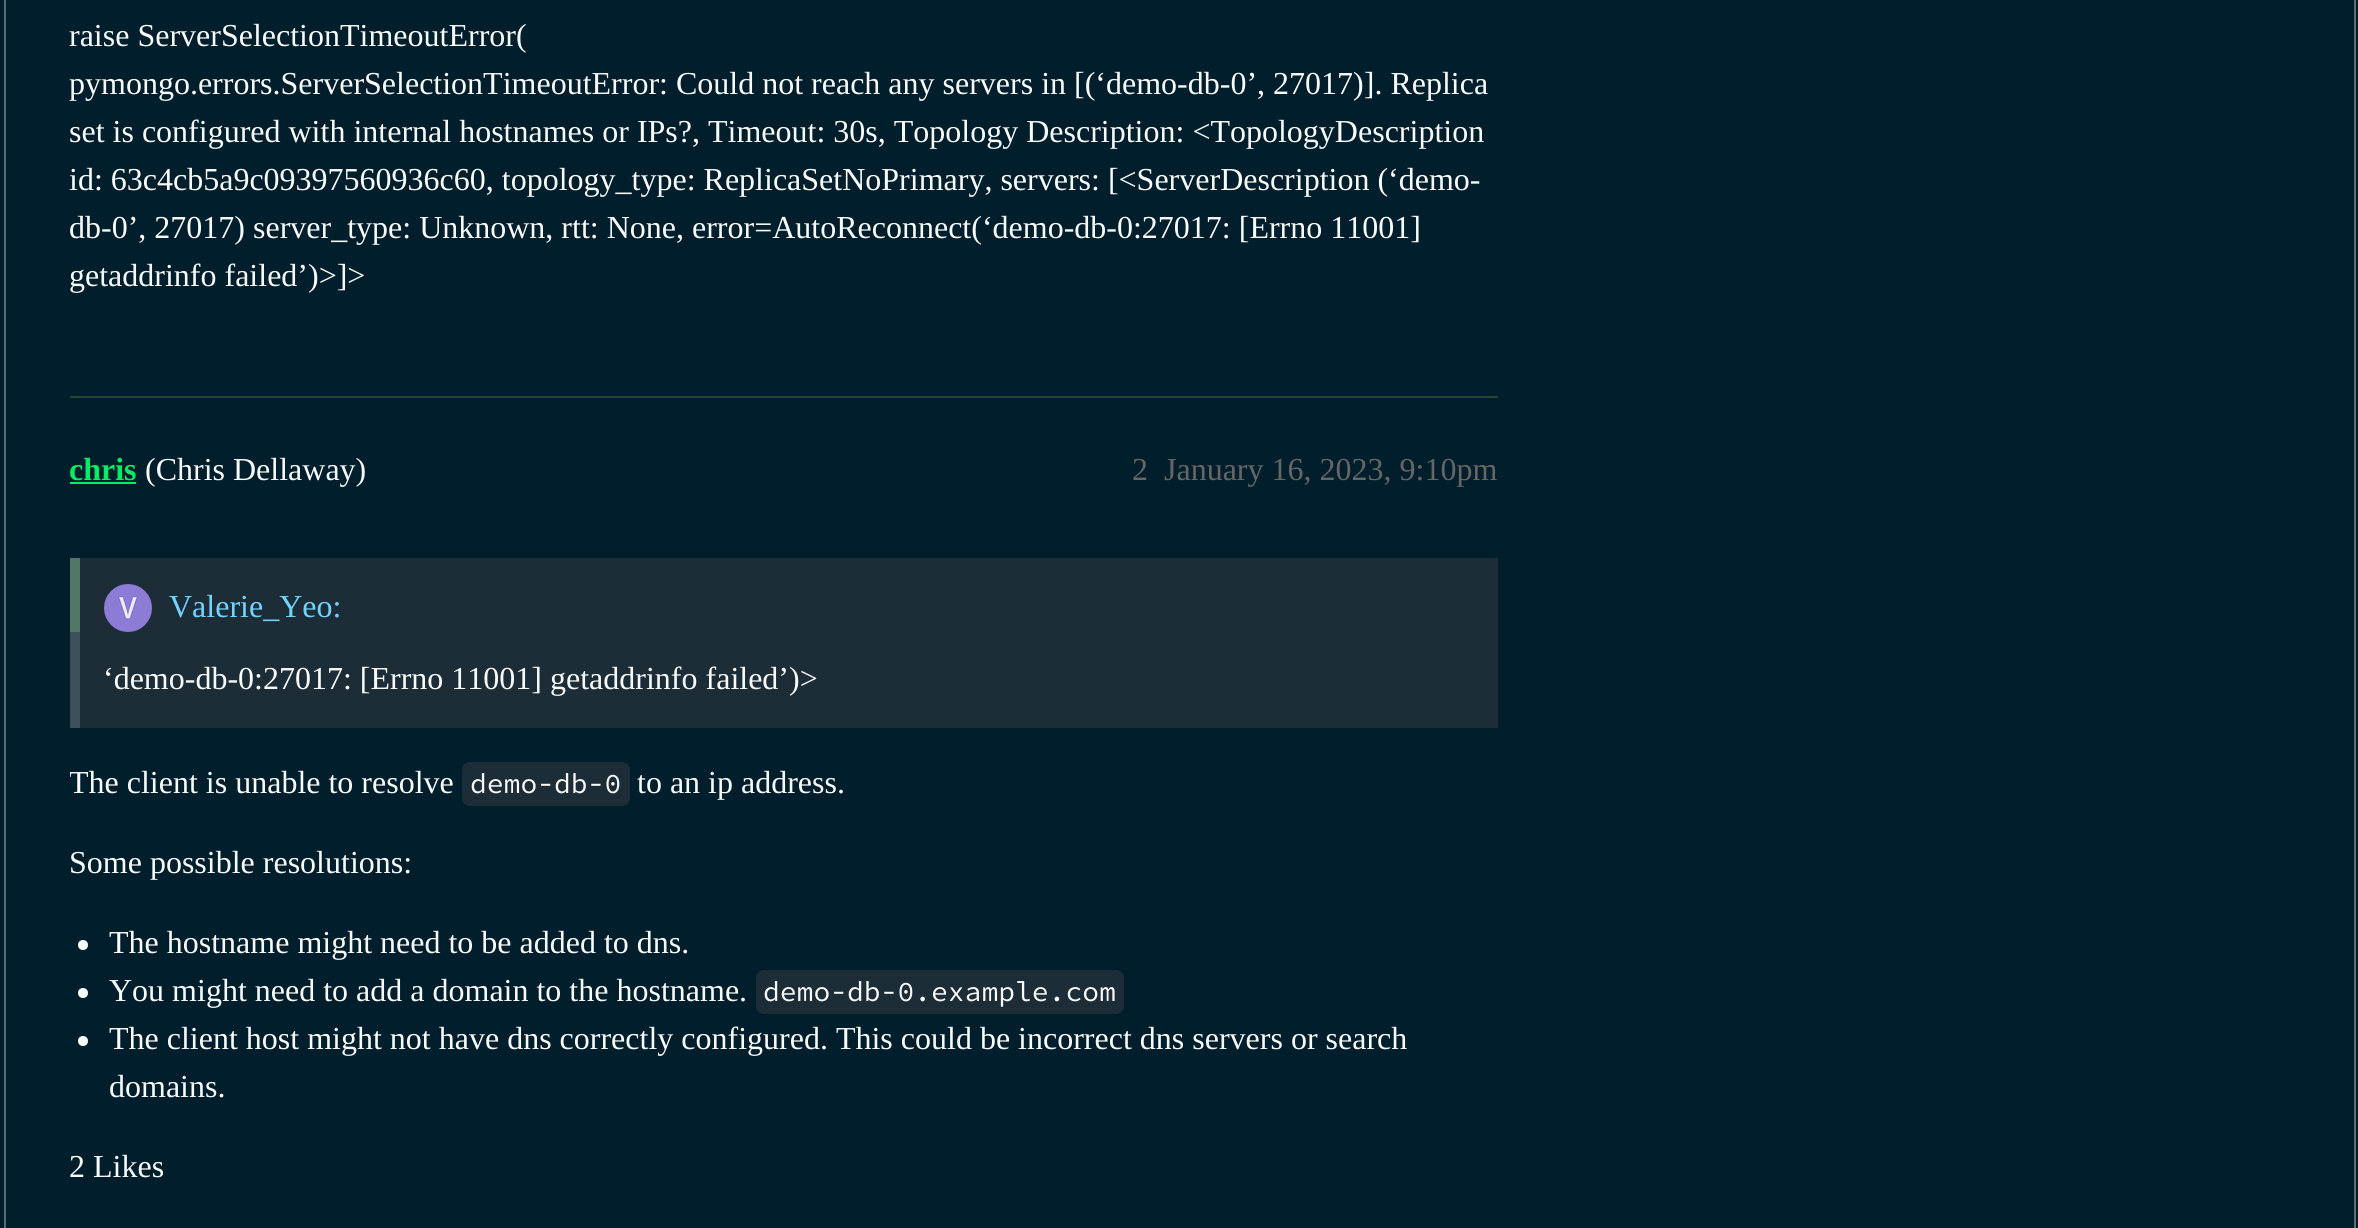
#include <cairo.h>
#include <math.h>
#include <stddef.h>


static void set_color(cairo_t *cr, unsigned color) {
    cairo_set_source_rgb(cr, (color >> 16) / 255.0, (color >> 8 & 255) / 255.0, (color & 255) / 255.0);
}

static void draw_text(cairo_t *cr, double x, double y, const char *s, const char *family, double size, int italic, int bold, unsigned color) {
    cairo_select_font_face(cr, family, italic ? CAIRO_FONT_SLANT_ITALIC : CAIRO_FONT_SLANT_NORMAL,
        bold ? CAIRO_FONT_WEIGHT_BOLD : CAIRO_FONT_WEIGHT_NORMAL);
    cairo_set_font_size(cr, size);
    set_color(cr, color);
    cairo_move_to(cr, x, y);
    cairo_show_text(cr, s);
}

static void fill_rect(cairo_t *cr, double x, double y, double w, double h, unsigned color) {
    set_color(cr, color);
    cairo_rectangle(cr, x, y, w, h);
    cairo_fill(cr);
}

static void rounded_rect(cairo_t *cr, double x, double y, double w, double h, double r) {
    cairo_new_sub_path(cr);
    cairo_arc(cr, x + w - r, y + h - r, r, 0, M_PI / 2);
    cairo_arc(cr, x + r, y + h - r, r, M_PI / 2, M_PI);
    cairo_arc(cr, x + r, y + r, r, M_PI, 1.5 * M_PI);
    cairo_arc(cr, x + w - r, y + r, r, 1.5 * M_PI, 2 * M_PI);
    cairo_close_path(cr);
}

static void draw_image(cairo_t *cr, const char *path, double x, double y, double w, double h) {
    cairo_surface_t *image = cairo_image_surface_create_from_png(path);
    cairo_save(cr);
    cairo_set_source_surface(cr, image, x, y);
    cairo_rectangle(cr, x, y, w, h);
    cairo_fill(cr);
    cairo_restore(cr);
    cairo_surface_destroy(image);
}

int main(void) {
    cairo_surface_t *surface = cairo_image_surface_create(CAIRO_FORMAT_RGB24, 2358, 1228);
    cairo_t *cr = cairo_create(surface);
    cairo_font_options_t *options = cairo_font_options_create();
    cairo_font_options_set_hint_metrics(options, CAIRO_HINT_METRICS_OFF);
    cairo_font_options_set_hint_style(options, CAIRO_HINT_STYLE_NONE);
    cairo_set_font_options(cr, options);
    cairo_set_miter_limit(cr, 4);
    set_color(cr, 0x001E2B);
    cairo_paint(cr);
    set_color(cr, 0x5C6C75);
    cairo_set_fill_rule(cr, CAIRO_FILL_RULE_EVEN_ODD);
    cairo_new_path(cr);
    cairo_move_to(cr, 54, -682);
    cairo_line_to(cr, 2306, -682);
    cairo_curve_to(cr, 2334, -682, 2356, -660, 2356, -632);
    cairo_line_to(cr, 2356, 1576);
    cairo_curve_to(cr, 2356, 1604, 2334, 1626, 2306, 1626);
    cairo_line_to(cr, 54, 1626);
    cairo_curve_to(cr, 26, 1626, 4, 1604, 4, 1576);
    cairo_line_to(cr, 4, -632);
    cairo_curve_to(cr, 4, -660, 26, -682, 54, -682);
    cairo_close_path(cr);
    cairo_move_to(cr, 54, -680);
    cairo_line_to(cr, 2306, -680);
    cairo_curve_to(cr, 2333, -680, 2354, -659, 2354, -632);
    cairo_line_to(cr, 2354, 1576);
    cairo_curve_to(cr, 2354, 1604, 2333, 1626, 2306, 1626);
    cairo_line_to(cr, 54, 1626);
    cairo_curve_to(cr, 27, 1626, 6, 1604, 6, 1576);
    cairo_line_to(cr, 6, -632);
    cairo_curve_to(cr, 6, -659, 27, -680, 54, -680);
    cairo_close_path(cr);
    cairo_fill(cr);
    draw_text(cr, 69, 46, "raise ServerSelectionTimeoutError(", "Liberation Serif", 32, 0, 0, 0xF9FBFA);
    draw_text(cr, 69, 94, "pymongo.errors.ServerSelectionTimeoutError: Could not reach any servers in [(‘demo-db-0’, 27017)]. Replica", "Liberation Serif", 32, 0, 0, 0xF9FBFA);
    draw_text(cr, 69, 142, "set is configured with internal hostnames or IPs?, Timeout: 30s, Topology Description: <TopologyDescription", "Liberation Serif", 32, 0, 0, 0xF9FBFA);
    draw_text(cr, 69, 190, "id: 63c4cb5a9c09397560936c60, topology_type: ReplicaSetNoPrimary, servers: [<ServerDescription (‘demo-", "Liberation Serif", 32, 0, 0, 0xF9FBFA);
    draw_text(cr, 69, 238, "db-0’, 27017) server_type: Unknown, rtt: None, error=AutoReconnect(‘demo-db-0:27017: [Errno 11001]", "Liberation Serif", 32, 0, 0, 0xF9FBFA);
    draw_text(cr, 69, 286, "getaddrinfo failed’)>]>", "Liberation Serif", 32, 0, 0, 0xF9FBFA);
    fill_rect(cr, 70, 396, 1428, 2, 0x2C4237);
    draw_text(cr, 69, 480, "chris", "Liberation Serif", 32, 0, 1, 0x00ED64);
    fill_rect(cr, 70, 482, 66, 2, 0x00ED64);
    draw_text(cr, 145, 480, "(Chris Dellaway)", "Liberation Serif", 32, 0, 0, 0xF9FBFA);
    draw_text(cr, 1132, 480, "2", "Liberation Serif", 32, 0, 0, 0x666666);
    draw_text(cr, 1164, 480, "January 16, 2023, 9:10pm", "Liberation Serif", 32, 0, 0, 0x666666);
    fill_rect(cr, 80, 558, 1418, 170, 0x1C2D38);
    fill_rect(cr, 70, 558, 10, 74, 0x507864);
    draw_image(cr, "assets/img1.png", 104, 584, 48, 48);
    draw_text(cr, 169, 617, "Valerie_Yeo:", "Liberation Serif", 32, 0, 0, 0x73D5FF);
    fill_rect(cr, 70, 632, 10, 96, 0x3D4F58);
    draw_text(cr, 103, 689, "‘demo-db-0:27017: [Errno 11001] getaddrinfo failed’)>", "Liberation Serif", 32, 0, 0, 0xF9FBFA);
    cairo_save(cr);
    cairo_set_fill_rule(cr, CAIRO_FILL_RULE_WINDING);
    cairo_rectangle(cr, 70, 526, 1428, 618);
    cairo_clip(cr);
    draw_text(cr, 69, 793, "The client is unable to resolve", "Liberation Serif", 32, 0, 0, 0xF9FBFA);
    cairo_restore(cr);
    set_color(cr, 0x1C2D38);
    rounded_rect(cr, 462, 762, 168, 44, 8);
    cairo_fill(cr);
    draw_text(cr, 470, 793, "demo-db-0", "Source Code Pro", 28, 0, 0, 0xF9FBFA);
    draw_text(cr, 637, 793, "to an ip address.", "Liberation Serif", 32, 0, 0, 0xF9FBFA);
    draw_text(cr, 69, 873, "Some possible resolutions:", "Liberation Serif", 32, 0, 0, 0xF9FBFA);
    cairo_new_path(cr);
    cairo_arc(cr, 83, 945, 5, 0, 2 * M_PI);
    cairo_fill(cr);
    draw_text(cr, 109, 953, "The hostname might need to be added to dns.", "Liberation Serif", 32, 0, 0, 0xF9FBFA);
    cairo_new_path(cr);
    cairo_arc(cr, 83, 993, 5, 0, 2 * M_PI);
    cairo_fill(cr);
    draw_text(cr, 109, 1001, "You might need to add a domain to the hostname.", "Liberation Serif", 32, 0, 0, 0xF9FBFA);
    set_color(cr, 0x1C2D38);
    rounded_rect(cr, 756, 970, 368, 44, 8);
    cairo_fill(cr);
    draw_text(cr, 763, 1001, "demo-db-0.example.com", "Source Code Pro", 28, 0, 0, 0xF9FBFA);
    cairo_new_path(cr);
    cairo_arc(cr, 83, 1041, 5, 0, 2 * M_PI);
    cairo_fill(cr);
    draw_text(cr, 109, 1049, "The client host might not have dns correctly configured. This could be incorrect dns servers or search", "Liberation Serif", 32, 0, 0, 0xF9FBFA);
    draw_text(cr, 109, 1097, "domains.", "Liberation Serif", 32, 0, 0, 0xF9FBFA);
    draw_text(cr, 69, 1177, "2 Likes", "Liberation Serif", 32, 0, 0, 0xF9FBFA);
    cairo_surface_write_to_png(surface, "output.png");
    cairo_font_options_destroy(options);
    cairo_destroy(cr);
    cairo_surface_destroy(surface);
    return 0;
}
